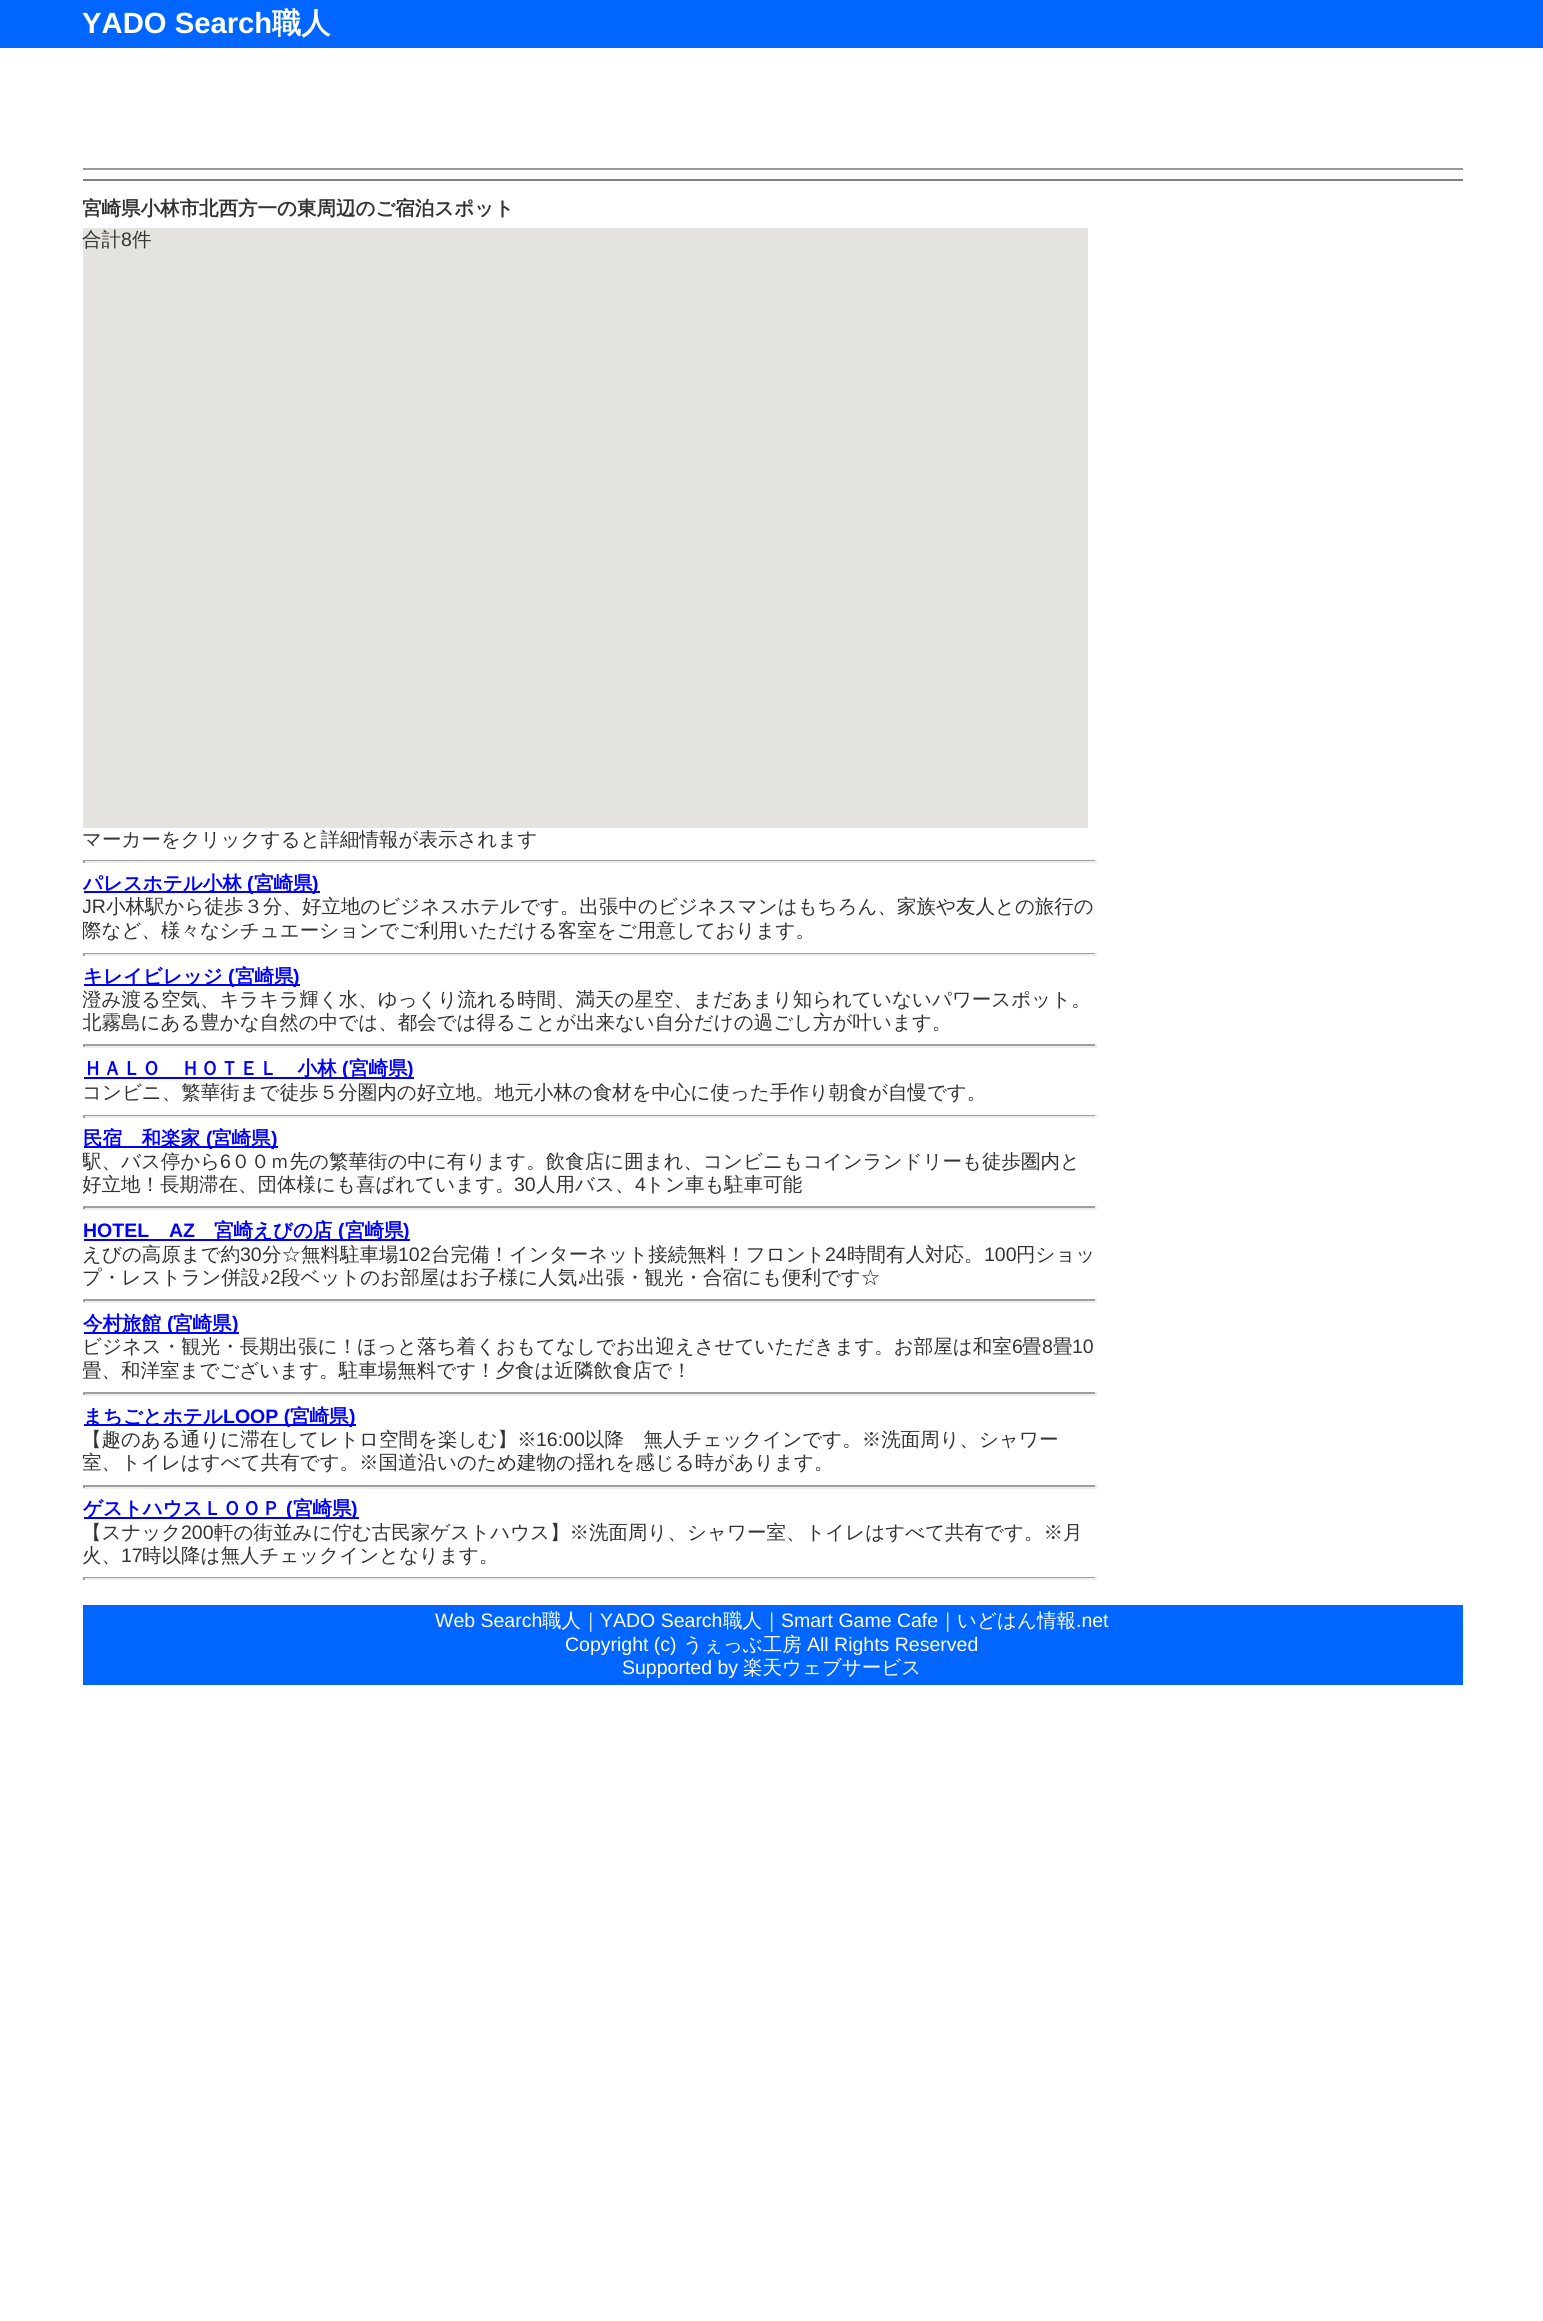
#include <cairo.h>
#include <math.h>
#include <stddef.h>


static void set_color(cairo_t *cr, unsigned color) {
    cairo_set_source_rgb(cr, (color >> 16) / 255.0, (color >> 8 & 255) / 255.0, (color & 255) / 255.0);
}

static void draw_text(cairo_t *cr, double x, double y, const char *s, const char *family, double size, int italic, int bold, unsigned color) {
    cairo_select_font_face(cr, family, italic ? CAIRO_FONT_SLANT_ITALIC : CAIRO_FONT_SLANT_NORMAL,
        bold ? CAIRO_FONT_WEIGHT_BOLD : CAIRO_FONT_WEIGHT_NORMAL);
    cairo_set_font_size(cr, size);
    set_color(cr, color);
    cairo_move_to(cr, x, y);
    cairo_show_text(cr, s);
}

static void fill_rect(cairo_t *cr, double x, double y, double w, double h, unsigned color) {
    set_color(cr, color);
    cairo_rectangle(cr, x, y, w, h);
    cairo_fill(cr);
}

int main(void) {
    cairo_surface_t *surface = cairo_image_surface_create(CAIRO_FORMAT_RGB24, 1543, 2321);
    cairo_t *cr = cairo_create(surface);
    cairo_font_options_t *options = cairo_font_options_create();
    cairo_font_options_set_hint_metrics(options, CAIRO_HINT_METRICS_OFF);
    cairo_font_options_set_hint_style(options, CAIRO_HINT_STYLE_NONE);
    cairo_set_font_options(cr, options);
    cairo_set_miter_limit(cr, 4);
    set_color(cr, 0xFFFFFF);
    cairo_paint(cr);
    fill_rect(cr, 0, 0, 1543, 48, 0x0066FF);
    draw_text(cr, 82, 33, "YADO Search", "Liberation Sans", 29.25, 0, 1, 0xFFFFFF);
    draw_text(cr, 272, 33, "職人", "WenQuanYi Zen Hei", 29.25, 0, 1, 0xFFFFFF);
    fill_rect(cr, 83, 168, 1380, 2, 0x999999);
    fill_rect(cr, 83, 179, 1380, 2, 0x808080);
    cairo_save(cr);
    cairo_rectangle(cr, 83, 191, 1380, 1414);
    cairo_clip(cr);
    draw_text(cr, 82, 215, "宮崎県小林市北西方一の東周辺のご宿泊スポット", "WenQuanYi Zen Hei", 19.5, 0, 1, 0x333333);
    cairo_restore(cr);
    fill_rect(cr, 83, 228, 1005, 600, 0xE5E3DF);
    draw_text(cr, 82, 246, "合計", "WenQuanYi Zen Hei Medium", 19.5, 0, 0, 0x333333);
    draw_text(cr, 121, 246, "8", "Liberation Sans", 19.5, 0, 0, 0x333333);
    draw_text(cr, 132, 246, "件", "WenQuanYi Zen Hei Medium", 19.5, 0, 0, 0x333333);
    fill_rect(cr, 84, 891, 236, 2, 0x0000FF);
    draw_text(cr, 83, 890, "パレスホテル小林", "WenQuanYi Zen Hei", 19.5, 0, 1, 0x0000FF);
    draw_text(cr, 247, 890, "(", "Liberation Sans", 19.5, 0, 1, 0x0000FF);
    draw_text(cr, 254, 890, "宮崎県", "WenQuanYi Zen Hei", 19.5, 0, 1, 0x0000FF);
    draw_text(cr, 312, 890, ")", "Liberation Sans", 19.5, 0, 1, 0x0000FF);
    cairo_save(cr);
    cairo_rectangle(cr, 83, 191, 1380, 1414);
    cairo_clip(cr);
    draw_text(cr, 82, 913, "JR", "Liberation Sans", 19.5, 0, 0, 0x333333);
    cairo_restore(cr);
    draw_text(cr, 106, 913, "小林駅から徒歩３分、好立地のビジネスホテルです。出張中のビジネスマンはもちろん、家族や友人との旅行の", "WenQuanYi Zen Hei Medium", 19.5, 0, 0, 0x333333);
    cairo_save(cr);
    cairo_rectangle(cr, 83, 191, 1380, 1414);
    cairo_clip(cr);
    draw_text(cr, 82, 937, "際など、様々なシチュエーションでご利用いただける客室をご用意しております。", "WenQuanYi Zen Hei Medium", 19.5, 0, 0, 0x333333);
    cairo_restore(cr);
    fill_rect(cr, 83, 953, 1014, 1, 0x9F9F9F);
    fill_rect(cr, 1095, 953, 2, 3, 0xEEEEEE);
    fill_rect(cr, 83, 954, 1014, 2, 0xEEEEEE);
    fill_rect(cr, 83, 953, 2, 3, 0x9F9F9F);
    fill_rect(cr, 84, 984, 216, 2, 0x0000FF);
    draw_text(cr, 83, 983, "キレイビレッジ", "WenQuanYi Zen Hei", 19.5, 0, 1, 0x0000FF);
    draw_text(cr, 228, 983, "(", "Liberation Sans", 19.5, 0, 1, 0x0000FF);
    draw_text(cr, 235, 983, "宮崎県", "WenQuanYi Zen Hei", 19.5, 0, 1, 0x0000FF);
    draw_text(cr, 293, 983, ")", "Liberation Sans", 19.5, 0, 1, 0x0000FF);
    cairo_save(cr);
    cairo_rectangle(cr, 83, 191, 1380, 1414);
    cairo_clip(cr);
    draw_text(cr, 82, 1006, "澄み渡る空気、キラキラ輝く水、ゆっくり流れる時間、満天の星空、まだあまり知られていないパワースポット。", "WenQuanYi Zen Hei Medium", 19.5, 0, 0, 0x333333);
    draw_text(cr, 82, 1029, "北霧島にある豊かな自然の中では、都会では得ることが出来ない自分だけの過ごし方が叶います。", "WenQuanYi Zen Hei Medium", 19.5, 0, 0, 0x333333);
    cairo_restore(cr);
    fill_rect(cr, 83, 1044, 1014, 2, 0x9F9F9F);
    fill_rect(cr, 1095, 1044, 2, 3, 0xEEEEEE);
    fill_rect(cr, 83, 1046, 1014, 2, 0xEEEEEE);
    fill_rect(cr, 83, 1044, 2, 3, 0x9F9F9F);
    fill_rect(cr, 84, 1077, 330, 2, 0x0000FF);
    draw_text(cr, 83, 1075, "ＨＡＬＯ　ＨＯＴＥＬ　小林", "WenQuanYi Zen Hei", 19.5, 0, 1, 0x0000FF);
    draw_text(cr, 342, 1075, "(", "Liberation Sans", 19.5, 0, 1, 0x0000FF);
    draw_text(cr, 349, 1075, "宮崎県", "WenQuanYi Zen Hei", 19.5, 0, 1, 0x0000FF);
    draw_text(cr, 407, 1075, ")", "Liberation Sans", 19.5, 0, 1, 0x0000FF);
    draw_text(cr, 82, 1099, "コンビニ、繁華街まで徒歩５分圏内の好立地。地元小林の食材を中心に使った手作り朝食が自慢です。", "WenQuanYi Zen Hei Medium", 19.5, 0, 0, 0x333333);
    fill_rect(cr, 83, 1115, 1014, 1, 0x9F9F9F);
    fill_rect(cr, 1095, 1115, 2, 3, 0xEEEEEE);
    fill_rect(cr, 83, 1116, 1014, 2, 0xEEEEEE);
    fill_rect(cr, 83, 1115, 2, 3, 0x9F9F9F);
    fill_rect(cr, 84, 1146, 194, 2, 0x0000FF);
    draw_text(cr, 83, 1145, "民宿　和楽家", "WenQuanYi Zen Hei", 19.5, 0, 1, 0x0000FF);
    draw_text(cr, 206, 1145, "(", "Liberation Sans", 19.5, 0, 1, 0x0000FF);
    draw_text(cr, 212, 1145, "宮崎県", "WenQuanYi Zen Hei", 19.5, 0, 1, 0x0000FF);
    draw_text(cr, 271, 1145, ")", "Liberation Sans", 19.5, 0, 1, 0x0000FF);
    cairo_save(cr);
    cairo_rectangle(cr, 83, 191, 1380, 1414);
    cairo_clip(cr);
    draw_text(cr, 82, 1168, "駅、バス停から", "WenQuanYi Zen Hei Medium", 19.5, 0, 0, 0x333333);
    cairo_restore(cr);
    draw_text(cr, 220, 1168, "6", "Liberation Sans", 19.5, 0, 0, 0x333333);
    draw_text(cr, 231, 1168, "００ｍ先の繁華街の中に有ります。飲食店に囲まれ、コンビニもコインランドリーも徒歩圏内と", "WenQuanYi Zen Hei Medium", 19.5, 0, 0, 0x333333);
    cairo_save(cr);
    cairo_rectangle(cr, 83, 191, 1380, 1414);
    cairo_clip(cr);
    draw_text(cr, 82, 1191, "好立地！長期滞在、団体様にも喜ばれています。", "WenQuanYi Zen Hei Medium", 19.5, 0, 0, 0x333333);
    cairo_restore(cr);
    draw_text(cr, 514, 1191, "30", "Liberation Sans", 19.5, 0, 0, 0x333333);
    draw_text(cr, 536, 1191, "人用バス、", "WenQuanYi Zen Hei Medium", 19.5, 0, 0, 0x333333);
    draw_text(cr, 635, 1191, "4", "Liberation Sans", 19.5, 0, 0, 0x333333);
    draw_text(cr, 645, 1191, "トン車も駐車可能", "WenQuanYi Zen Hei Medium", 19.5, 0, 0, 0x333333);
    fill_rect(cr, 83, 1206, 1014, 2, 0x9F9F9F);
    fill_rect(cr, 1095, 1206, 2, 3, 0xEEEEEE);
    fill_rect(cr, 83, 1208, 1014, 2, 0xEEEEEE);
    fill_rect(cr, 83, 1206, 2, 3, 0x9F9F9F);
    draw_text(cr, 83, 1237, "HOTEL", "Liberation Sans", 19.5, 0, 1, 0x0000FF);
    draw_text(cr, 169, 1237, "AZ", "Liberation Sans", 19.5, 0, 1, 0x0000FF);
    fill_rect(cr, 84, 1239, 326, 2, 0x0000FF);
    draw_text(cr, 214, 1237, "宮崎えびの店", "WenQuanYi Zen Hei", 19.5, 0, 1, 0x0000FF);
    draw_text(cr, 338, 1237, "(", "Liberation Sans", 19.5, 0, 1, 0x0000FF);
    draw_text(cr, 345, 1237, "宮崎県", "WenQuanYi Zen Hei", 19.5, 0, 1, 0x0000FF);
    draw_text(cr, 403, 1237, ")", "Liberation Sans", 19.5, 0, 1, 0x0000FF);
    draw_text(cr, 82, 1261, "えびの高原まで約", "WenQuanYi Zen Hei Medium", 19.5, 0, 0, 0x333333);
    draw_text(cr, 240, 1261, "30", "Liberation Sans", 19.5, 0, 0, 0x333333);
    draw_text(cr, 262, 1261, "分☆無料駐車場", "WenQuanYi Zen Hei Medium", 19.5, 0, 0, 0x333333);
    draw_text(cr, 398, 1261, "102", "Liberation Sans", 19.5, 0, 0, 0x333333);
    draw_text(cr, 431, 1261, "台完備！インターネット接続無料！フロント", "WenQuanYi Zen Hei Medium", 19.5, 0, 0, 0x333333);
    draw_text(cr, 825, 1261, "24", "Liberation Sans", 19.5, 0, 0, 0x333333);
    draw_text(cr, 847, 1261, "時間有人対応。", "WenQuanYi Zen Hei Medium", 19.5, 0, 0, 0x333333);
    draw_text(cr, 984, 1261, "100", "Liberation Sans", 19.5, 0, 0, 0x333333);
    draw_text(cr, 1016, 1261, "円ショッ", "WenQuanYi Zen Hei Medium", 19.5, 0, 0, 0x333333);
    draw_text(cr, 82, 1284, "プ・レストラン併設", "WenQuanYi Zen Hei Medium", 19.5, 0, 0, 0x333333);
    draw_text(cr, 260, 1284, "♪2", "Liberation Sans", 19.5, 0, 0, 0x333333);
    draw_text(cr, 281, 1284, "段ベットのお部屋はお子様に人気", "WenQuanYi Zen Hei Medium", 19.5, 0, 0, 0x333333);
    draw_text(cr, 577, 1284, "♪", "Liberation Sans", 19.5, 0, 0, 0x333333);
    draw_text(cr, 586, 1284, "出張・観光・合宿にも便利です☆", "WenQuanYi Zen Hei Medium", 19.5, 0, 0, 0x333333);
    fill_rect(cr, 83, 1299, 1014, 2, 0x9F9F9F);
    fill_rect(cr, 1095, 1299, 2, 3, 0xEEEEEE);
    fill_rect(cr, 83, 1301, 1014, 2, 0xEEEEEE);
    fill_rect(cr, 83, 1299, 2, 3, 0x9F9F9F);
    fill_rect(cr, 84, 1332, 155, 2, 0x0000FF);
    draw_text(cr, 83, 1330, "今村旅館", "WenQuanYi Zen Hei", 19.5, 0, 1, 0x0000FF);
    draw_text(cr, 167, 1330, "(", "Liberation Sans", 19.5, 0, 1, 0x0000FF);
    draw_text(cr, 173, 1330, "宮崎県", "WenQuanYi Zen Hei", 19.5, 0, 1, 0x0000FF);
    draw_text(cr, 232, 1330, ")", "Liberation Sans", 19.5, 0, 1, 0x0000FF);
    draw_text(cr, 82, 1353, "ビジネス・観光・長期出張に！ほっと落ち着くおもてなしでお出迎えさせていただきます。お部屋は和室", "WenQuanYi Zen Hei Medium", 19.5, 0, 0, 0x333333);
    draw_text(cr, 1012, 1353, "6", "Liberation Sans", 19.5, 0, 0, 0x333333);
    draw_text(cr, 1022, 1353, "畳", "WenQuanYi Zen Hei Medium", 19.5, 0, 0, 0x333333);
    draw_text(cr, 1042, 1353, "8", "Liberation Sans", 19.5, 0, 0, 0x333333);
    draw_text(cr, 1053, 1353, "畳", "WenQuanYi Zen Hei Medium", 19.5, 0, 0, 0x333333);
    draw_text(cr, 1072, 1353, "10", "Liberation Sans", 19.5, 0, 0, 0x333333);
    cairo_save(cr);
    cairo_rectangle(cr, 83, 191, 1380, 1414);
    cairo_clip(cr);
    draw_text(cr, 82, 1377, "畳、和洋室までございます。駐車場無料です！夕食は近隣飲食店で！", "WenQuanYi Zen Hei Medium", 19.5, 0, 0, 0x333333);
    cairo_restore(cr);
    fill_rect(cr, 83, 1392, 1014, 2, 0x9F9F9F);
    fill_rect(cr, 1095, 1392, 2, 3, 0xEEEEEE);
    fill_rect(cr, 83, 1394, 1014, 2, 0xEEEEEE);
    fill_rect(cr, 83, 1392, 2, 3, 0x9F9F9F);
    fill_rect(cr, 84, 1424, 272, 2, 0x0000FF);
    draw_text(cr, 83, 1423, "まちごとホテル", "WenQuanYi Zen Hei", 19.5, 0, 1, 0x0000FF);
    draw_text(cr, 223, 1423, "LOOP (", "Liberation Sans", 19.5, 0, 1, 0x0000FF);
    draw_text(cr, 290, 1423, "宮崎県", "WenQuanYi Zen Hei", 19.5, 0, 1, 0x0000FF);
    draw_text(cr, 349, 1423, ")", "Liberation Sans", 19.5, 0, 1, 0x0000FF);
    draw_text(cr, 82, 1446, "【趣のある通りに滞在してレトロ空間を楽しむ】※", "WenQuanYi Zen Hei Medium", 19.5, 0, 0, 0x333333);
    draw_text(cr, 536, 1446, "16:00", "Liberation Sans", 19.5, 0, 0, 0x333333);
    draw_text(cr, 585, 1446, "以降　無人チェックインです。※洗面周り、シャワー", "WenQuanYi Zen Hei Medium", 19.5, 0, 0, 0x333333);
    cairo_save(cr);
    cairo_rectangle(cr, 83, 191, 1380, 1414);
    cairo_clip(cr);
    draw_text(cr, 82, 1469, "室、トイレはすべて共有です。※国道沿いのため建物の揺れを感じる時があります。", "WenQuanYi Zen Hei Medium", 19.5, 0, 0, 0x333333);
    cairo_restore(cr);
    fill_rect(cr, 83, 1485, 1014, 2, 0x9F9F9F);
    fill_rect(cr, 1095, 1485, 2, 3, 0xEEEEEE);
    fill_rect(cr, 83, 1487, 1014, 2, 0xEEEEEE);
    fill_rect(cr, 83, 1485, 2, 3, 0x9F9F9F);
    fill_rect(cr, 84, 1517, 275, 2, 0x0000FF);
    draw_text(cr, 83, 1515, "ゲストハウスＬＯＯＰ", "WenQuanYi Zen Hei", 19.5, 0, 1, 0x0000FF);
    draw_text(cr, 286, 1515, "(", "Liberation Sans", 19.5, 0, 1, 0x0000FF);
    draw_text(cr, 293, 1515, "宮崎県", "WenQuanYi Zen Hei", 19.5, 0, 1, 0x0000FF);
    draw_text(cr, 351, 1515, ")", "Liberation Sans", 19.5, 0, 1, 0x0000FF);
    draw_text(cr, 82, 1539, "【スナック", "WenQuanYi Zen Hei Medium", 19.5, 0, 0, 0x333333);
    draw_text(cr, 181, 1539, "200", "Liberation Sans", 19.5, 0, 0, 0x333333);
    draw_text(cr, 214, 1539, "軒の街並みに佇む古民家ゲストハウス】※洗面周り、シャワー室、トイレはすべて共有です。※月", "WenQuanYi Zen Hei Medium", 19.5, 0, 0, 0x333333);
    draw_text(cr, 82, 1562, "火、", "WenQuanYi Zen Hei Medium", 19.5, 0, 0, 0x333333);
    draw_text(cr, 121, 1562, "17", "Liberation Sans", 19.5, 0, 0, 0x333333);
    draw_text(cr, 142, 1562, "時以降は無人チェックインとなります。", "WenQuanYi Zen Hei Medium", 19.5, 0, 0, 0x333333);
    fill_rect(cr, 83, 1577, 1014, 1, 0x9F9F9F);
    fill_rect(cr, 1095, 1577, 2, 3, 0xEEEEEE);
    fill_rect(cr, 83, 1578, 1014, 2, 0xEEEEEE);
    fill_rect(cr, 83, 1577, 2, 3, 0x9F9F9F);
    draw_text(cr, 82, 846, "マーカーをクリックすると詳細情報が表示されます", "WenQuanYi Zen Hei Medium", 19.5, 0, 0, 0x333333);
    fill_rect(cr, 83, 860, 1014, 1, 0x9F9F9F);
    fill_rect(cr, 1095, 860, 2, 3, 0xEEEEEE);
    fill_rect(cr, 83, 861, 1014, 2, 0xEEEEEE);
    fill_rect(cr, 83, 860, 2, 3, 0x9F9F9F);
    fill_rect(cr, 83, 1605, 1380, 80, 0x0066FF);
    draw_text(cr, 435, 1627, "Web Search", "Liberation Sans", 19.5, 0, 0, 0xFFFFFF);
    draw_text(cr, 542, 1627, "職人｜", "WenQuanYi Zen Hei Medium", 19.5, 0, 0, 0xFFFFFF);
    draw_text(cr, 600, 1627, "YADO Search", "Liberation Sans", 19.5, 0, 0, 0xFFFFFF);
    draw_text(cr, 723, 1627, "職人｜", "WenQuanYi Zen Hei Medium", 19.5, 0, 0, 0xFFFFFF);
    draw_text(cr, 781, 1627, "Smart Game Cafe", "Liberation Sans", 19.5, 0, 0, 0xFFFFFF);
    draw_text(cr, 938, 1627, "｜いどはん情報", "WenQuanYi Zen Hei Medium", 19.5, 0, 0, 0xFFFFFF);
    draw_text(cr, 1076, 1627, ".net", "Liberation Sans", 19.5, 0, 0, 0xFFFFFF);
    draw_text(cr, 565, 1651, "Copyright (c)", "Liberation Sans", 19.5, 0, 0, 0xFFFFFF);
    draw_text(cr, 683, 1651, "うぇっぶ工房", "WenQuanYi Zen Hei Medium", 19.5, 0, 0, 0xFFFFFF);
    draw_text(cr, 807, 1651, "All Rights Reserved", "Liberation Sans", 19.5, 0, 0, 0xFFFFFF);
    draw_text(cr, 622, 1674, "Supported by", "Liberation Sans", 19.5, 0, 0, 0xFFFFFF);
    draw_text(cr, 743, 1674, "楽天ウェブサービス", "WenQuanYi Zen Hei Medium", 19.5, 0, 0, 0xFFFFFF);
    cairo_surface_write_to_png(surface, "output.png");
    cairo_font_options_destroy(options);
    cairo_destroy(cr);
    cairo_surface_destroy(surface);
    return 0;
}
